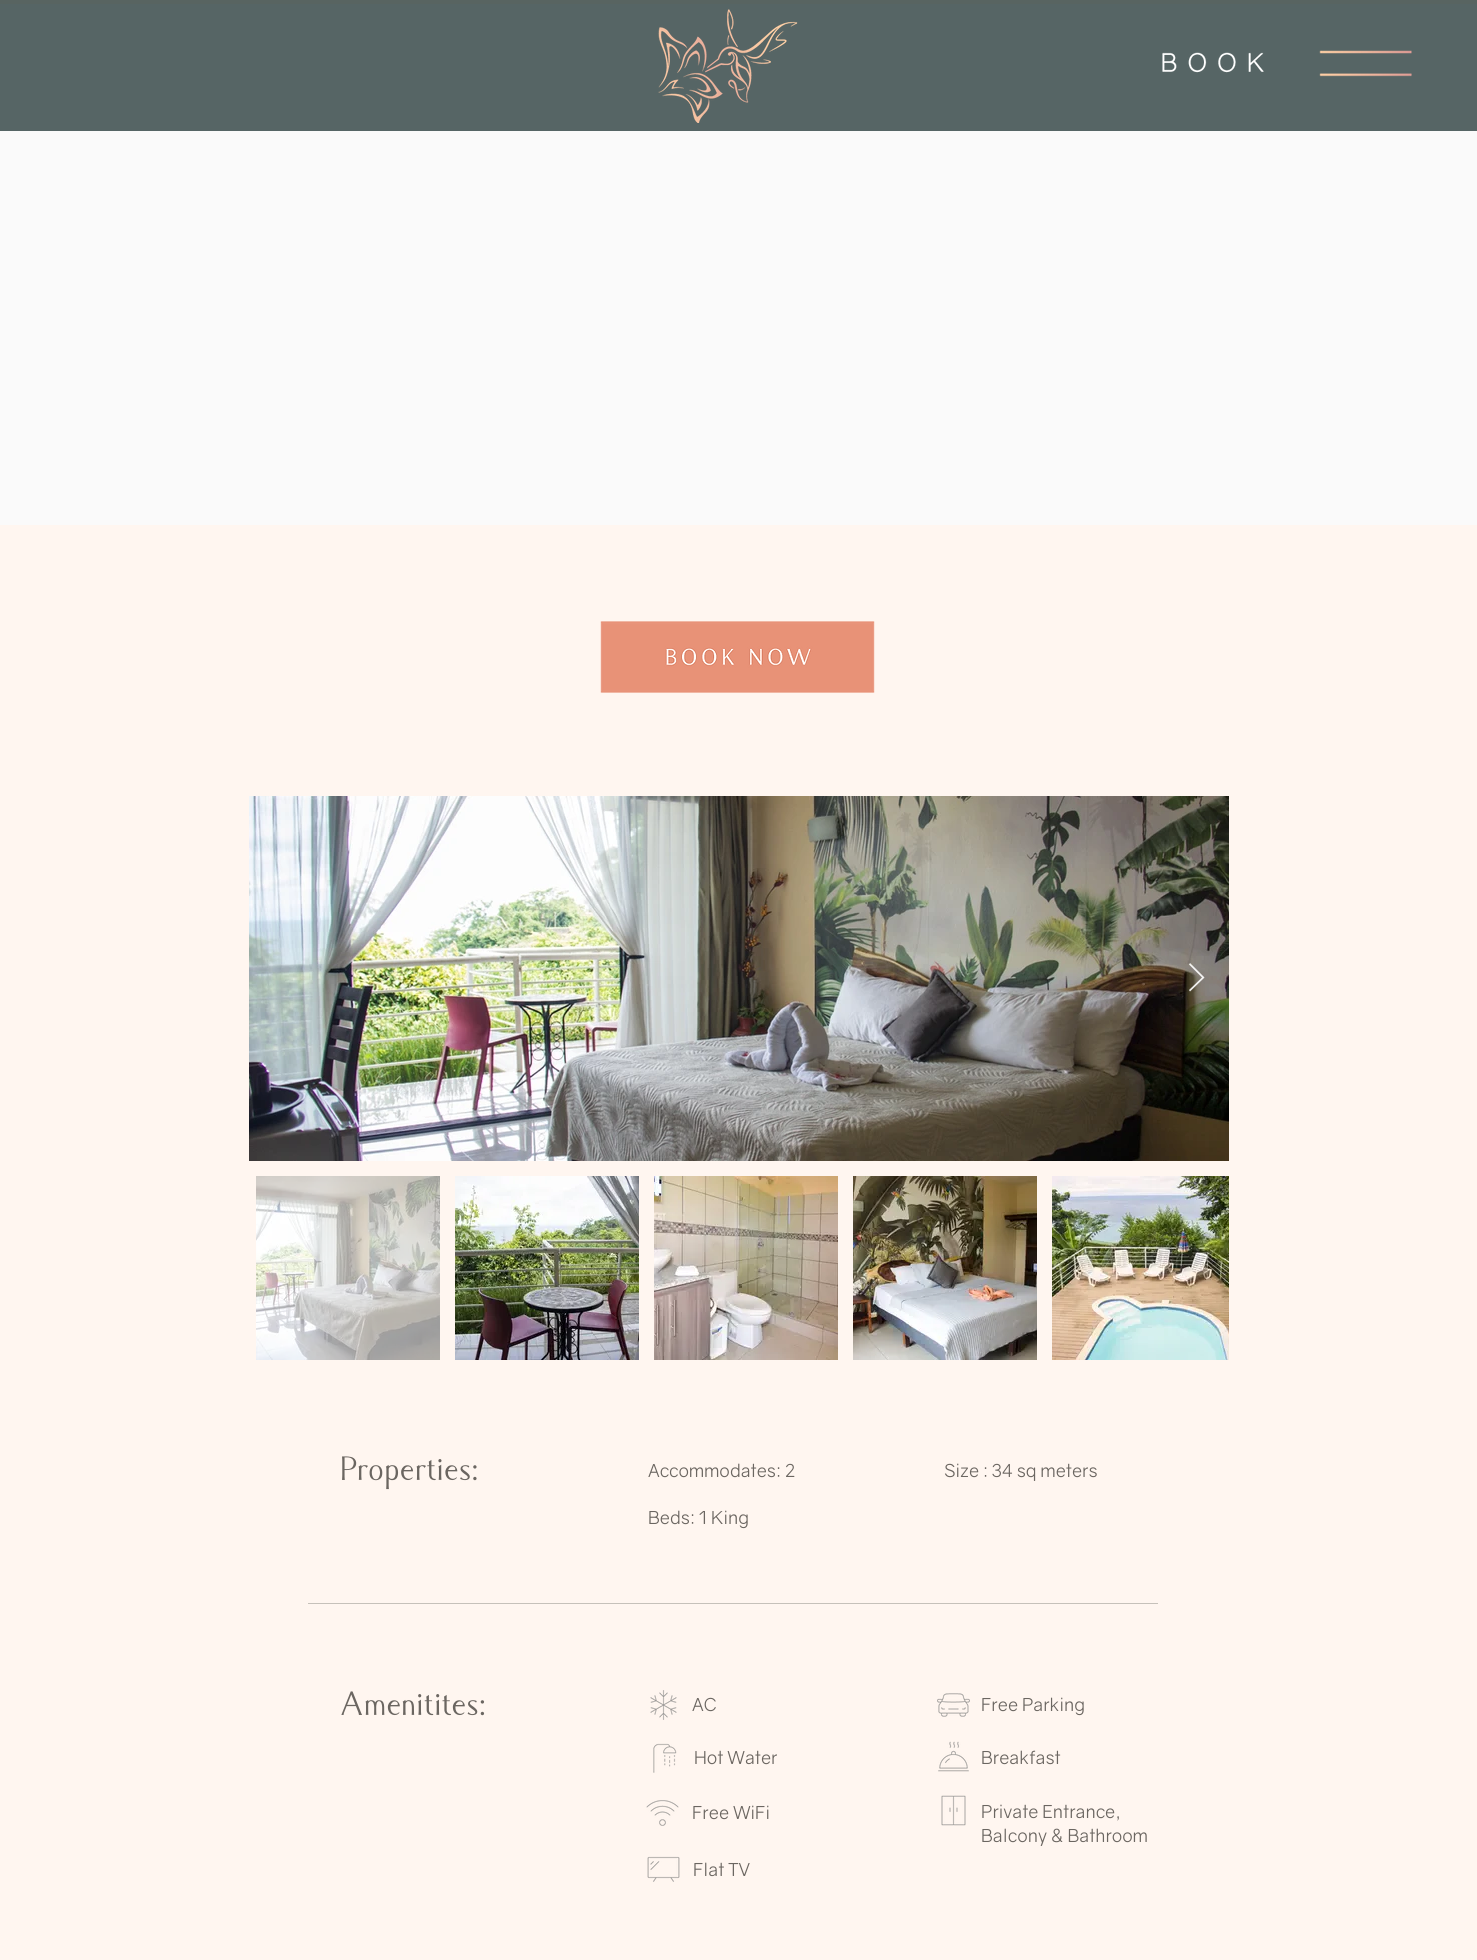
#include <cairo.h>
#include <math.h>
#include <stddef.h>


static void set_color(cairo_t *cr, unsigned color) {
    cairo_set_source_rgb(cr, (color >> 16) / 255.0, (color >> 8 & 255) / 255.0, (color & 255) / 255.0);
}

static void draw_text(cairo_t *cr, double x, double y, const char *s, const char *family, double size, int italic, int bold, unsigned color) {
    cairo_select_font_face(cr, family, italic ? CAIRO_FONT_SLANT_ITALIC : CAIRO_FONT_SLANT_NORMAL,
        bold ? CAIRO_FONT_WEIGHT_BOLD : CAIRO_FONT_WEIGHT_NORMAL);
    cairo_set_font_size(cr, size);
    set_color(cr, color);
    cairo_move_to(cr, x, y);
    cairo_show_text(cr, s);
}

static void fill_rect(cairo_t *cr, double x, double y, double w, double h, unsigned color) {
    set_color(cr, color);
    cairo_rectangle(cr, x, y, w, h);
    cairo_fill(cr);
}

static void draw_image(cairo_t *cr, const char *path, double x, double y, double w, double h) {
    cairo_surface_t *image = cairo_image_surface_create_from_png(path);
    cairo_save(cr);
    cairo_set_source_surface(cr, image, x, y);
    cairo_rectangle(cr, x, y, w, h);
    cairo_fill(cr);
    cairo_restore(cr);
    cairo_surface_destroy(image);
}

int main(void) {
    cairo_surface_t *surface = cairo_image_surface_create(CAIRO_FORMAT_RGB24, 1477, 1960);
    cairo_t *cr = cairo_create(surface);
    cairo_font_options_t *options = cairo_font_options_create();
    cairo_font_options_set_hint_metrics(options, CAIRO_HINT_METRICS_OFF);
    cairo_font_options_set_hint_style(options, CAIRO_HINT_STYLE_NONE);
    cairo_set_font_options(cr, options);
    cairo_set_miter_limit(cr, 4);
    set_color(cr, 0xFFF6F0);
    cairo_paint(cr);
    fill_rect(cr, 0, 0, 1477, 4, 0x586461);
    fill_rect(cr, 0, 4, 1477, 127, 0x566565);
    draw_image(cr, "assets/img1.png", 658, 9, 140, 114);
    draw_image(cr, "assets/img2.png", 1162, 52, 102, 21);
    draw_image(cr, "assets/img3.png", 1319, 50, 93, 27);
    fill_rect(cr, 0, 131, 1477, 394, 0xFAFAFA);
    draw_image(cr, "assets/img4.png", 600, 621, 275, 72);
    draw_image(cr, "assets/img5.png", 249, 796, 980, 365);
    cairo_set_source_rgba(cr, 1, 1, 1, 0.9);
    cairo_new_path(cr);
    cairo_move_to(cr, 1189, 964.5);
    cairo_line_to(cr, 1190, 963);
    cairo_line_to(cr, 1204.5, 977.5);
    cairo_line_to(cr, 1190, 991.5);
    cairo_line_to(cr, 1189, 990);
    cairo_line_to(cr, 1202, 977.5);
    cairo_close_path(cr);
    cairo_fill(cr);
    draw_image(cr, "assets/img6.png", 256, 1176, 184, 184);
    draw_image(cr, "assets/img7.png", 455, 1176, 184, 184);
    draw_image(cr, "assets/img8.png", 654, 1176, 184, 184);
    draw_image(cr, "assets/img9.png", 853, 1176, 184, 184);
    draw_image(cr, "assets/img10.png", 1052, 1176, 177, 184);
    draw_text(cr, 340, 1480, "Properties:", "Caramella", 34, 0, 0, 0x6B6661);
    draw_text(cr, 648, 1477, "Accommodates: 2", "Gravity", 18, 0, 0, 0x6B6661);
    draw_text(cr, 944, 1477, "Size : 34 sq meters", "Gravity", 18, 0, 0, 0x6B6661);
    draw_text(cr, 648, 1524, "Beds: 1 King", "Gravity", 18, 0, 0, 0x6B6661);
    fill_rect(cr, 308, 1603, 850, 1, 0xC6C1BA);
    draw_text(cr, 340, 1715, "Amenitites:", "Caramella", 34, 0, 0, 0x6B6661);
    draw_image(cr, "assets/img11.png", 650, 1690, 27, 30);
    draw_text(cr, 692, 1711, "AC", "Gravity", 18, 0, 0, 0x6B6661);
    draw_image(cr, "assets/img12.png", 937, 1693, 33, 24);
    draw_text(cr, 981, 1711, "Free Parking", "Gravity", 18, 0, 0, 0x6B6661);
    draw_image(cr, "assets/img13.png", 653, 1743, 24, 30);
    draw_text(cr, 694, 1764, "Hot Water", "Gravity", 18, 0, 0, 0x6B6661);
    draw_image(cr, "assets/img14.png", 938, 1741, 31, 31);
    draw_text(cr, 981, 1764, "Breakfast", "Gravity", 18, 0, 0, 0x6B6661);
    draw_image(cr, "assets/img15.png", 646, 1800, 33, 26);
    draw_text(cr, 692, 1819, "Free WiFi", "Gravity", 18, 0, 0, 0x6B6661);
    draw_image(cr, "assets/img16.png", 941, 1795, 25, 31);
    draw_text(cr, 981, 1818, "Private Entrance,", "Gravity", 18, 0, 0, 0x6B6661);
    draw_text(cr, 981, 1842, "Balcony & Bathroom", "Gravity", 18, 0, 0, 0x6B6661);
    draw_image(cr, "assets/img17.png", 647, 1856, 33, 26);
    draw_text(cr, 693, 1876, "Flat TV", "Gravity", 18, 0, 0, 0x6B6661);
    cairo_surface_write_to_png(surface, "output.png");
    cairo_font_options_destroy(options);
    cairo_destroy(cr);
    cairo_surface_destroy(surface);
    return 0;
}
